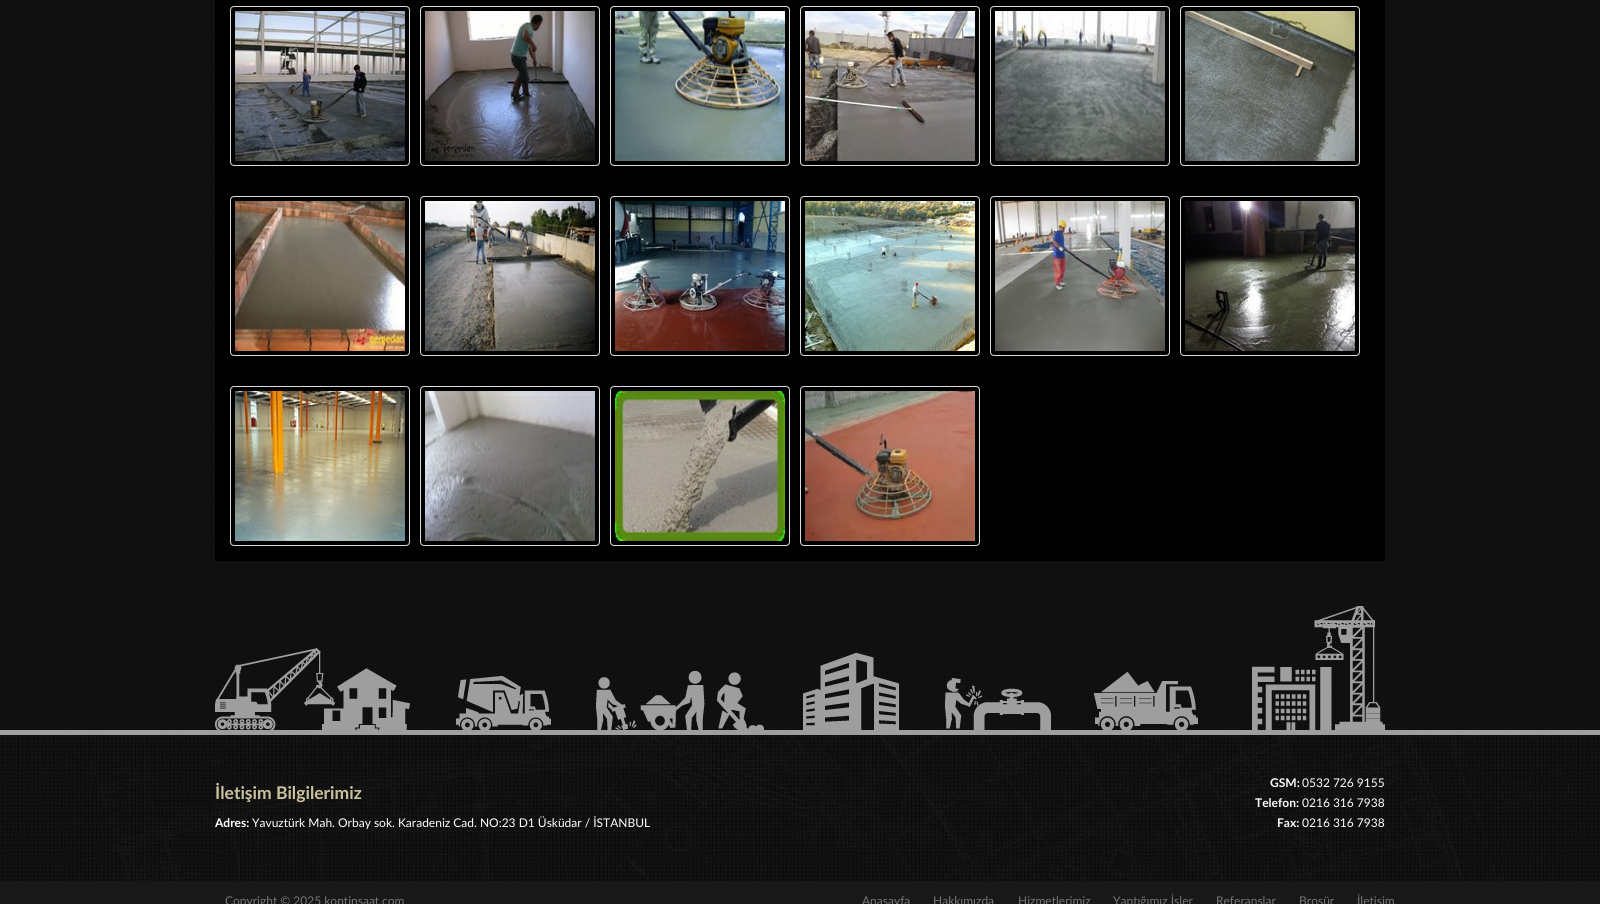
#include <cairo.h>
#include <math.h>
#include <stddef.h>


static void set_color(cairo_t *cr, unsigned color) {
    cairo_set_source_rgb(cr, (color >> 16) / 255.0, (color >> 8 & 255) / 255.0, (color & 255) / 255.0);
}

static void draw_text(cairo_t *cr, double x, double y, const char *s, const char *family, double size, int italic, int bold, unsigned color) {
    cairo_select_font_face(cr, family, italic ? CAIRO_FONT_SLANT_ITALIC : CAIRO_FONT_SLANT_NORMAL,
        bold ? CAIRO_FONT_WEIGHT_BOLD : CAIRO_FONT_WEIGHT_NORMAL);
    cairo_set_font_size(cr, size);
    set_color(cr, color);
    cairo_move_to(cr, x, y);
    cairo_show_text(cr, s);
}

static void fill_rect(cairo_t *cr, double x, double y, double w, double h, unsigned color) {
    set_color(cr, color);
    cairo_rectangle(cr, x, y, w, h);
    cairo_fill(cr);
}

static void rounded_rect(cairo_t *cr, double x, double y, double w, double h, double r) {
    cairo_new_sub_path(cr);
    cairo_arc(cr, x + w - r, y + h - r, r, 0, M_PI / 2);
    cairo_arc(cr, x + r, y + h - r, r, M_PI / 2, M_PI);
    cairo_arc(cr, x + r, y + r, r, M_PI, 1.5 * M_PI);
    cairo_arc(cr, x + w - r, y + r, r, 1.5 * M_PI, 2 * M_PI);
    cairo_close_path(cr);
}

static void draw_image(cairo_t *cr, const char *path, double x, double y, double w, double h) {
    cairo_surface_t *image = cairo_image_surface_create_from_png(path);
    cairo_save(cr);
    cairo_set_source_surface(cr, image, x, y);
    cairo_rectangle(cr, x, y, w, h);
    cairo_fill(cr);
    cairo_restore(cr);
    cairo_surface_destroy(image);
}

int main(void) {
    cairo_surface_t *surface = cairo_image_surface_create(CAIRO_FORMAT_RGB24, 1600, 904);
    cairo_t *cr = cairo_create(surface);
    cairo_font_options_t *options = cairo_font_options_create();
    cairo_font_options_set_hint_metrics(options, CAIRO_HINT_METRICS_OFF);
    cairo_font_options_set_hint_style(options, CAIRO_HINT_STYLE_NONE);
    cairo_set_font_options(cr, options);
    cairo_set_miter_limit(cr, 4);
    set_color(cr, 0xFFFFFF);
    cairo_paint(cr);
    draw_image(cr, "assets/img1.png", 0, 0, 1600, 730);
    fill_rect(cr, 215, 0, 1170, 561, 0x000000);
    rounded_rect(cr, 230.5, 6.5, 179, 159, 3.5);
    set_color(cr, 0xDDDDDD);
    cairo_set_line_width(cr, 1);
    cairo_stroke(cr);
    draw_image(cr, "assets/img2.png", 235, 11, 170, 150);
    rounded_rect(cr, 420.5, 6.5, 179, 159, 3.5);
    cairo_stroke(cr);
    draw_image(cr, "assets/img3.png", 425, 11, 170, 150);
    rounded_rect(cr, 610.5, 6.5, 179, 159, 3.5);
    cairo_stroke(cr);
    draw_image(cr, "assets/img4.png", 615, 11, 170, 150);
    rounded_rect(cr, 800.5, 6.5, 179, 159, 3.5);
    cairo_stroke(cr);
    draw_image(cr, "assets/img5.png", 805, 11, 170, 150);
    rounded_rect(cr, 990.5, 6.5, 179, 159, 3.5);
    cairo_stroke(cr);
    draw_image(cr, "assets/img6.png", 995, 11, 170, 150);
    rounded_rect(cr, 1180.5, 6.5, 179, 159, 3.5);
    cairo_stroke(cr);
    draw_image(cr, "assets/img7.png", 1185, 11, 170, 150);
    rounded_rect(cr, 230.5, 196.5, 179, 159, 3.5);
    cairo_stroke(cr);
    draw_image(cr, "assets/img8.png", 235, 201, 170, 150);
    rounded_rect(cr, 420.5, 196.5, 179, 159, 3.5);
    cairo_stroke(cr);
    draw_image(cr, "assets/img9.png", 425, 201, 170, 150);
    rounded_rect(cr, 610.5, 196.5, 179, 159, 3.5);
    cairo_stroke(cr);
    draw_image(cr, "assets/img10.png", 615, 201, 170, 150);
    rounded_rect(cr, 800.5, 196.5, 179, 159, 3.5);
    cairo_stroke(cr);
    draw_image(cr, "assets/img11.png", 805, 201, 170, 150);
    rounded_rect(cr, 990.5, 196.5, 179, 159, 3.5);
    cairo_stroke(cr);
    draw_image(cr, "assets/img12.png", 995, 201, 170, 150);
    rounded_rect(cr, 1180.5, 196.5, 179, 159, 3.5);
    cairo_stroke(cr);
    draw_image(cr, "assets/img13.png", 1185, 201, 170, 150);
    rounded_rect(cr, 230.5, 386.5, 179, 159, 3.5);
    cairo_stroke(cr);
    draw_image(cr, "assets/img14.png", 235, 391, 170, 150);
    rounded_rect(cr, 420.5, 386.5, 179, 159, 3.5);
    cairo_stroke(cr);
    draw_image(cr, "assets/img15.png", 425, 391, 170, 150);
    rounded_rect(cr, 610.5, 386.5, 179, 159, 3.5);
    cairo_stroke(cr);
    draw_image(cr, "assets/img16.png", 615, 391, 170, 150);
    rounded_rect(cr, 800.5, 386.5, 179, 159, 3.5);
    cairo_stroke(cr);
    draw_image(cr, "assets/img17.png", 805, 391, 170, 150);
    fill_rect(cr, 0, 730, 1600, 5, 0x9E9E9E);
    draw_image(cr, "assets/img18.png", 215, 606, 1170, 124);
    draw_image(cr, "assets/img19.png", 0, 735, 1600, 146);
    draw_text(cr, 215, 799, "İletişim Bilgilerimiz", "Lato", 17.5, 0, 1, 0xCBC39F);
    draw_text(cr, 215, 827, "Adres:", "Lato", 12, 0, 1, 0xFFFFFF);
    draw_text(cr, 252, 827, "Yavuztürk Mah. Orbay sok. Karadeniz Cad. NO:23 D1 Üsküdar / İSTANBUL", "Lato", 12, 0, 0, 0xFFFFFF);
    draw_text(cr, 1270, 787, "GSM:", "Lato", 12, 0, 1, 0xFFFFFF);
    draw_text(cr, 1302, 787, "0532 726 9155", "Lato", 12, 0, 0, 0xFFFFFF);
    draw_text(cr, 1255, 807, "Telefon:", "Lato", 12, 0, 1, 0xFFFFFF);
    draw_text(cr, 1302, 807, "0216 316 7938", "Lato", 12, 0, 0, 0xFFFFFF);
    draw_text(cr, 1277, 827, "Fax:", "Lato", 12, 0, 1, 0xFFFFFF);
    draw_text(cr, 1302, 827, "0216 316 7938", "Lato", 12, 0, 0, 0xFFFFFF);
    fill_rect(cr, 0, 881, 1600, 23, 0x181818);
    draw_text(cr, 225, 905, "Copyright © 2025 kontinsaat.com", "Lato", 12, 0, 0, 0x777777);
    draw_text(cr, 862, 905, "Anasayfa", "Lato", 12, 0, 0, 0x777777);
    draw_text(cr, 933, 905, "Hakkımızda", "Lato", 12, 0, 0, 0x777777);
    draw_text(cr, 1018, 905, "Hizmetlerimiz", "Lato", 12, 0, 0, 0x777777);
    draw_text(cr, 1113, 905, "Yaptığımız İşler", "Lato", 12, 0, 0, 0x777777);
    draw_text(cr, 1216, 905, "Referanslar", "Lato", 12, 0, 0, 0x777777);
    draw_text(cr, 1299, 905, "Broşür", "Lato", 12, 0, 0, 0x777777);
    draw_text(cr, 1357, 905, "İletişim", "Lato", 12, 0, 0, 0x777777);
    cairo_surface_write_to_png(surface, "output.png");
    cairo_font_options_destroy(options);
    cairo_destroy(cr);
    cairo_surface_destroy(surface);
    return 0;
}
